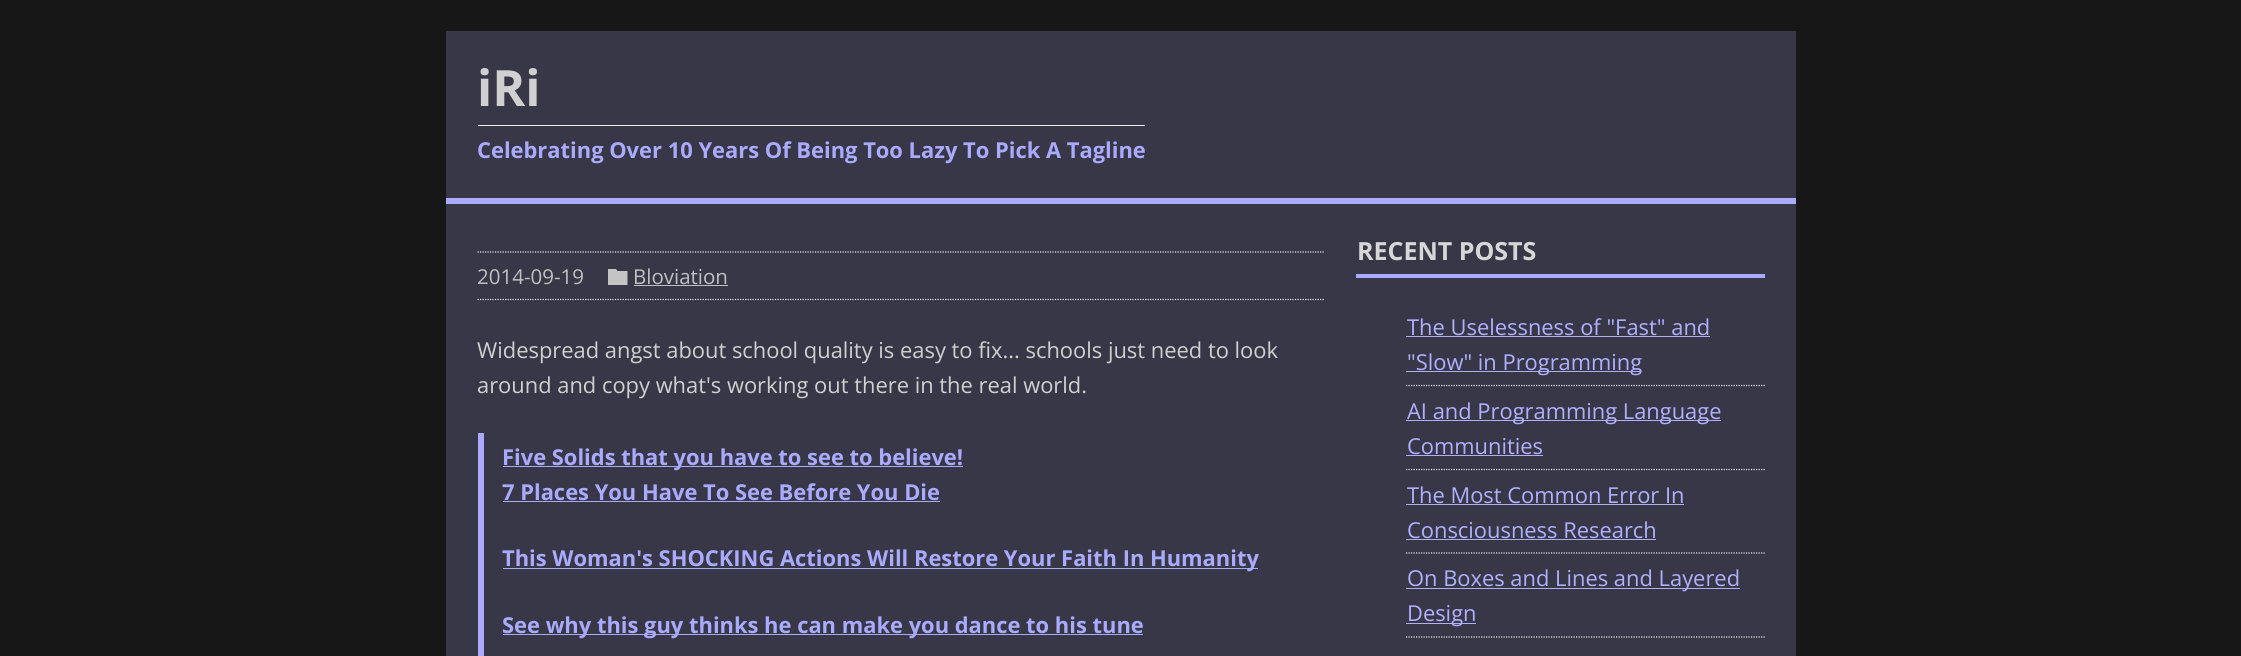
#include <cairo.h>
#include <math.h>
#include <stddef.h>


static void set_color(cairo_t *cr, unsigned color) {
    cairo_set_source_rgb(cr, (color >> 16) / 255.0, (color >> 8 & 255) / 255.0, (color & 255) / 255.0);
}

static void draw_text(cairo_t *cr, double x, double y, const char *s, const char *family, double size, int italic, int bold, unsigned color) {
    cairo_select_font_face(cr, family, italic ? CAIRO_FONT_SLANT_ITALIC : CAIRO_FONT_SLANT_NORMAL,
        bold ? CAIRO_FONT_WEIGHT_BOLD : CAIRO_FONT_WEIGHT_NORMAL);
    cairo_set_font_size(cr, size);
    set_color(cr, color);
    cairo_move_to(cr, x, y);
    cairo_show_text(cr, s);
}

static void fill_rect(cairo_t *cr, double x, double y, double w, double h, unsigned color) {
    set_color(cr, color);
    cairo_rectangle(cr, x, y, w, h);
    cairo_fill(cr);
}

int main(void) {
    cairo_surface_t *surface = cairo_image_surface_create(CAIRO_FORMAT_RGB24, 2241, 656);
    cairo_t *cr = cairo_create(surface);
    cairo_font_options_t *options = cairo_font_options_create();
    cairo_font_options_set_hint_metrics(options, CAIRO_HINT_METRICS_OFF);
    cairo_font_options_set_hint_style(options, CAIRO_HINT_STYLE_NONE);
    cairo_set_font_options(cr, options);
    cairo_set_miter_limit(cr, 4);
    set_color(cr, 0x171717);
    cairo_paint(cr);
    fill_rect(cr, 446, 31, 1350, 167, 0x373747);
    draw_text(cr, 477, 106, "iRi", "Open Sans", 50, 0, 1, 0xD0D0D0);
    fill_rect(cr, 478, 125, 667, 1, 0xEBEBEB);
    draw_text(cr, 477, 158, "Celebrating Over 10 Years Of Being Too Lazy To Pick A Tagline", "Open Sans", 21.9, 0, 1, 0xAAAAFF);
    fill_rect(cr, 446, 198, 1350, 6, 0xAAAAFF);
    fill_rect(cr, 446, 204, 1350, 452, 0x373747);
    cairo_new_path(cr);
    cairo_move_to(cr, 477.5, 252);
    cairo_line_to(cr, 1325, 252);
    set_color(cr, 0xEBEBEB);
    cairo_set_line_width(cr, 1.2);
    cairo_set_dash(cr, (double[]){1.25, 1.25}, 2, 0);
    cairo_stroke(cr);
    cairo_new_path(cr);
    cairo_move_to(cr, 477.5, 299.5);
    cairo_line_to(cr, 1325, 299.5);
    cairo_stroke(cr);
    draw_text(cr, 477, 284, "2014-09-19", "Open Sans", 20.5, 0, 0, 0xC0C0C0);
    draw_text(cr, 633, 284, "Bloviation", "Open Sans", 20.5, 0, 0, 0xC0C0C0);
    fill_rect(cr, 634, 285, 94, 1, 0xC0C0C0);
    cairo_save(cr);
    cairo_rectangle(cr, 608, 266, 20, 20);
    cairo_clip(cr);
    set_color(cr, 0xC4C4C4);
    cairo_new_path(cr);
    cairo_move_to(cr, 616, 269);
    cairo_line_to(cr, 617.5, 271);
    cairo_line_to(cr, 627.5, 271);
    cairo_line_to(cr, 627.5, 285);
    cairo_line_to(cr, 607.5, 285);
    cairo_line_to(cr, 607.5, 269);
    cairo_close_path(cr);
    cairo_fill(cr);
    cairo_restore(cr);
    draw_text(cr, 477, 358, "Widespread angst about school quality is easy to fix... schools just need to look", "Open Sans", 21.9, 0, 0, 0xD0D0D0);
    draw_text(cr, 477, 393, "around and copy what's working out there in the real world.", "Open Sans", 21.9, 0, 0, 0xD0D0D0);
    fill_rect(cr, 478, 433, 6, 223, 0xAAAAFF);
    fill_rect(cr, 503, 466, 460, 1, 0xAAAAFF);
    draw_text(cr, 502, 465, "Five Solids that you have to see to believe!", "Open Sans", 21.9, 0, 1, 0xAAAAFF);
    draw_text(cr, 502, 500, "7 Places You Have To See Before You Die", "Open Sans", 21.9, 0, 1, 0xAAAAFF);
    fill_rect(cr, 503, 501, 437, 1, 0xAAAAFF);
    fill_rect(cr, 503, 568, 755, 1, 0xAAAAFF);
    draw_text(cr, 502, 566, "This Woman's SHOCKING Actions Will Restore Your Faith In Humanity", "Open Sans", 21.9, 0, 1, 0xAAAAFF);
    fill_rect(cr, 503, 634, 640, 1, 0xAAAAFF);
    draw_text(cr, 502, 633, "See why this guy thinks he can make you dance to his tune", "Open Sans", 21.9, 0, 1, 0xAAAAFF);
    fill_rect(cr, 1356, 274, 409, 4, 0xAAAAFF);
    draw_text(cr, 1357, 260, "RECENT POSTS", "Open Sans", 25, 0, 1, 0xD7D7D7);
    cairo_new_path(cr);
    cairo_move_to(cr, 1406, 385.5);
    cairo_line_to(cr, 1765, 385.5);
    set_color(cr, 0xEBEBEB);
    cairo_stroke(cr);
    draw_text(cr, 1407, 335, "The Uselessness of \"Fast\" and", "Open Sans", 21.9, 0, 0, 0xB0B0FF);
    fill_rect(cr, 1406, 336, 304, 1, 0xB0B0FF);
    fill_rect(cr, 1406, 371, 235, 1, 0xB0B0FF);
    draw_text(cr, 1407, 370, "\"Slow\" in Programming", "Open Sans", 21.9, 0, 0, 0xB0B0FF);
    cairo_new_path(cr);
    cairo_move_to(cr, 1406, 469.5);
    cairo_line_to(cr, 1765, 469.5);
    set_color(cr, 0xEBEBEB);
    cairo_stroke(cr);
    fill_rect(cr, 1406, 420, 315, 1, 0xB0B0FF);
    draw_text(cr, 1407, 419, "AI and Programming Language", "Open Sans", 21.9, 0, 0, 0xB0B0FF);
    draw_text(cr, 1407, 454, "Communities", "Open Sans", 21.9, 0, 0, 0xB0B0FF);
    fill_rect(cr, 1406, 455, 137, 1, 0xB0B0FF);
    cairo_new_path(cr);
    cairo_move_to(cr, 1406, 553);
    cairo_line_to(cr, 1765, 553);
    set_color(cr, 0xEBEBEB);
    cairo_stroke(cr);
    draw_text(cr, 1407, 503, "The Most Common Error In", "Open Sans", 21.9, 0, 0, 0xB0B0FF);
    fill_rect(cr, 1406, 504, 278, 1, 0xB0B0FF);
    draw_text(cr, 1407, 538, "Consciousness Research", "Open Sans", 21.9, 0, 0, 0xB0B0FF);
    fill_rect(cr, 1406, 539, 250, 1, 0xB0B0FF);
    cairo_new_path(cr);
    cairo_move_to(cr, 1406, 637);
    cairo_line_to(cr, 1765, 637);
    set_color(cr, 0xEBEBEB);
    cairo_stroke(cr);
    fill_rect(cr, 1406, 588, 334, 1, 0xB0B0FF);
    draw_text(cr, 1407, 586, "On Boxes and Lines and Layered", "Open Sans", 21.9, 0, 0, 0xB0B0FF);
    fill_rect(cr, 1406, 623, 70, 1, 0xB0B0FF);
    draw_text(cr, 1407, 621, "Design", "Open Sans", 21.9, 0, 0, 0xB0B0FF);
    cairo_surface_write_to_png(surface, "output.png");
    cairo_font_options_destroy(options);
    cairo_destroy(cr);
    cairo_surface_destroy(surface);
    return 0;
}
